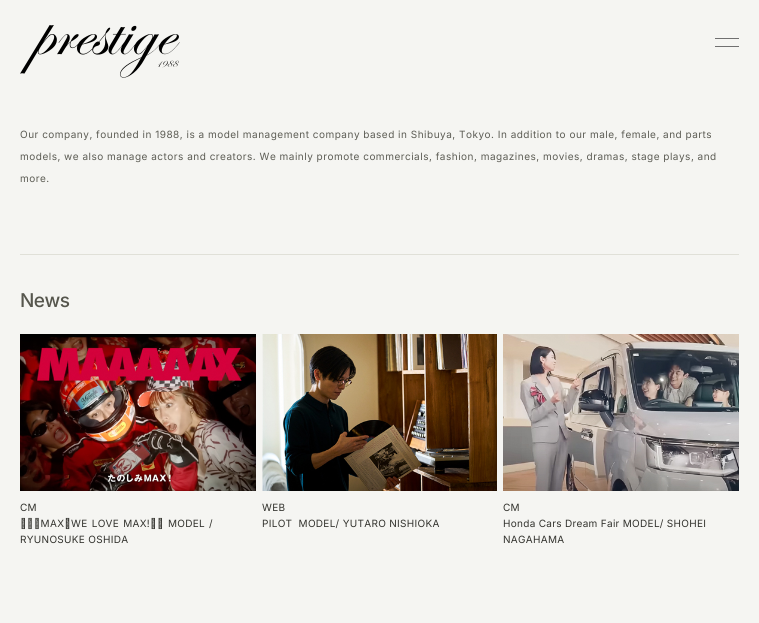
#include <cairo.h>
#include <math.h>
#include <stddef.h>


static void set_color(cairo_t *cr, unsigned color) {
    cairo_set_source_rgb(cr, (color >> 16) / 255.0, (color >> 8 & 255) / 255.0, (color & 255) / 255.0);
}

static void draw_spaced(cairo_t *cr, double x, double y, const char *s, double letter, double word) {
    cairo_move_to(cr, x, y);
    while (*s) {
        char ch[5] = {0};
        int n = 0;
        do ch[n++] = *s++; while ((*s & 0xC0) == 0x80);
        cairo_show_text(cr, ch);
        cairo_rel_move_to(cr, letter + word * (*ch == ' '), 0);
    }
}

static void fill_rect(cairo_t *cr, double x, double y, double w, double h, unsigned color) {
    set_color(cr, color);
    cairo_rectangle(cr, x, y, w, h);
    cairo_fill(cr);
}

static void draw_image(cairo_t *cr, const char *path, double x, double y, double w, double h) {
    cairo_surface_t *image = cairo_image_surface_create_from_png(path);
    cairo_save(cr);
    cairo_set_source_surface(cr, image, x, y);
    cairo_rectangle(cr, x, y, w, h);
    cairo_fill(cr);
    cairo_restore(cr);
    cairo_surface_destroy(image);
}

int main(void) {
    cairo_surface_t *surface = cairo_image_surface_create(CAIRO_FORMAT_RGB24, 759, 623);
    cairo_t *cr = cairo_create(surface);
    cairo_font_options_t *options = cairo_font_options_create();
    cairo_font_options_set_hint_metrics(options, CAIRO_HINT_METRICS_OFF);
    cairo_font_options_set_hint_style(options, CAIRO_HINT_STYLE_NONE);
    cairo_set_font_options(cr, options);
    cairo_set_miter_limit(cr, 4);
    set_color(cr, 0xF5F5F2);
    cairo_paint(cr);
    fill_rect(cr, 715, 38, 24, 1, 0x707070);
    fill_rect(cr, 715, 46, 24, 1, 0x707070);
    fill_rect(cr, 20, 254, 719, 1, 0xE0E0D8);
    draw_image(cr, "assets/img1.png", 20, 25, 160, 53);
    cairo_select_font_face(cr, "Inter", CAIRO_FONT_SLANT_NORMAL, CAIRO_FONT_WEIGHT_NORMAL);
    cairo_set_font_size(cr, 10);
    set_color(cr, 0x5C5C54);
    draw_spaced(cr, 20, 138, "Our company, founded in 1988, is a model management company based in Shibuya, Tokyo. In addition to our male, female, and parts", 0.5, 0);
    draw_spaced(cr, 20, 160, "models, we also manage actors and creators. We mainly promote commercials, fashion, magazines, movies, dramas, stage plays, and", 0.5, 0);
    draw_spaced(cr, 20, 182, "more.", 0.5, 0);
    cairo_select_font_face(cr, "Inter Medium", CAIRO_FONT_SLANT_NORMAL, CAIRO_FONT_WEIGHT_NORMAL);
    cairo_set_font_size(cr, 19);
    set_color(cr, 0x56564D);
    draw_spaced(cr, 20, 307, "News", -0.5, 0);
    draw_image(cr, "assets/img2.png", 20, 334, 236, 157);
    cairo_select_font_face(cr, "Inter", CAIRO_FONT_SLANT_NORMAL, CAIRO_FONT_WEIGHT_NORMAL);
    cairo_set_font_size(cr, 10);
    set_color(cr, 0x33332E);
    draw_spaced(cr, 20, 511, "CM", 0.3, 0);
    draw_spaced(cr, 20, 527, "ドコモMAX「WE LOVE MAX!」編 MODEL /", 0.3, 1);
    draw_spaced(cr, 20, 543, "RYUNOSUKE OSHIDA", 0.3, 0);
    draw_image(cr, "assets/img3.png", 262, 334, 235, 157);
    draw_spaced(cr, 262, 511, "WEB", 0.3, 0);
    draw_spaced(cr, 262, 527, "PILOT  MODEL/ YUTARO NISHIOKA", 0.3, 0);
    draw_image(cr, "assets/img4.png", 503, 334, 236, 157);
    draw_spaced(cr, 503, 511, "CM", 0.3, 0);
    draw_spaced(cr, 503, 527, "Honda Cars Dream Fair MODEL/ SHOHEI", 0.3, 0);
    draw_spaced(cr, 503, 543, "NAGAHAMA", 0.3, 0);
    cairo_surface_write_to_png(surface, "output.png");
    cairo_font_options_destroy(options);
    cairo_destroy(cr);
    cairo_surface_destroy(surface);
    return 0;
}
